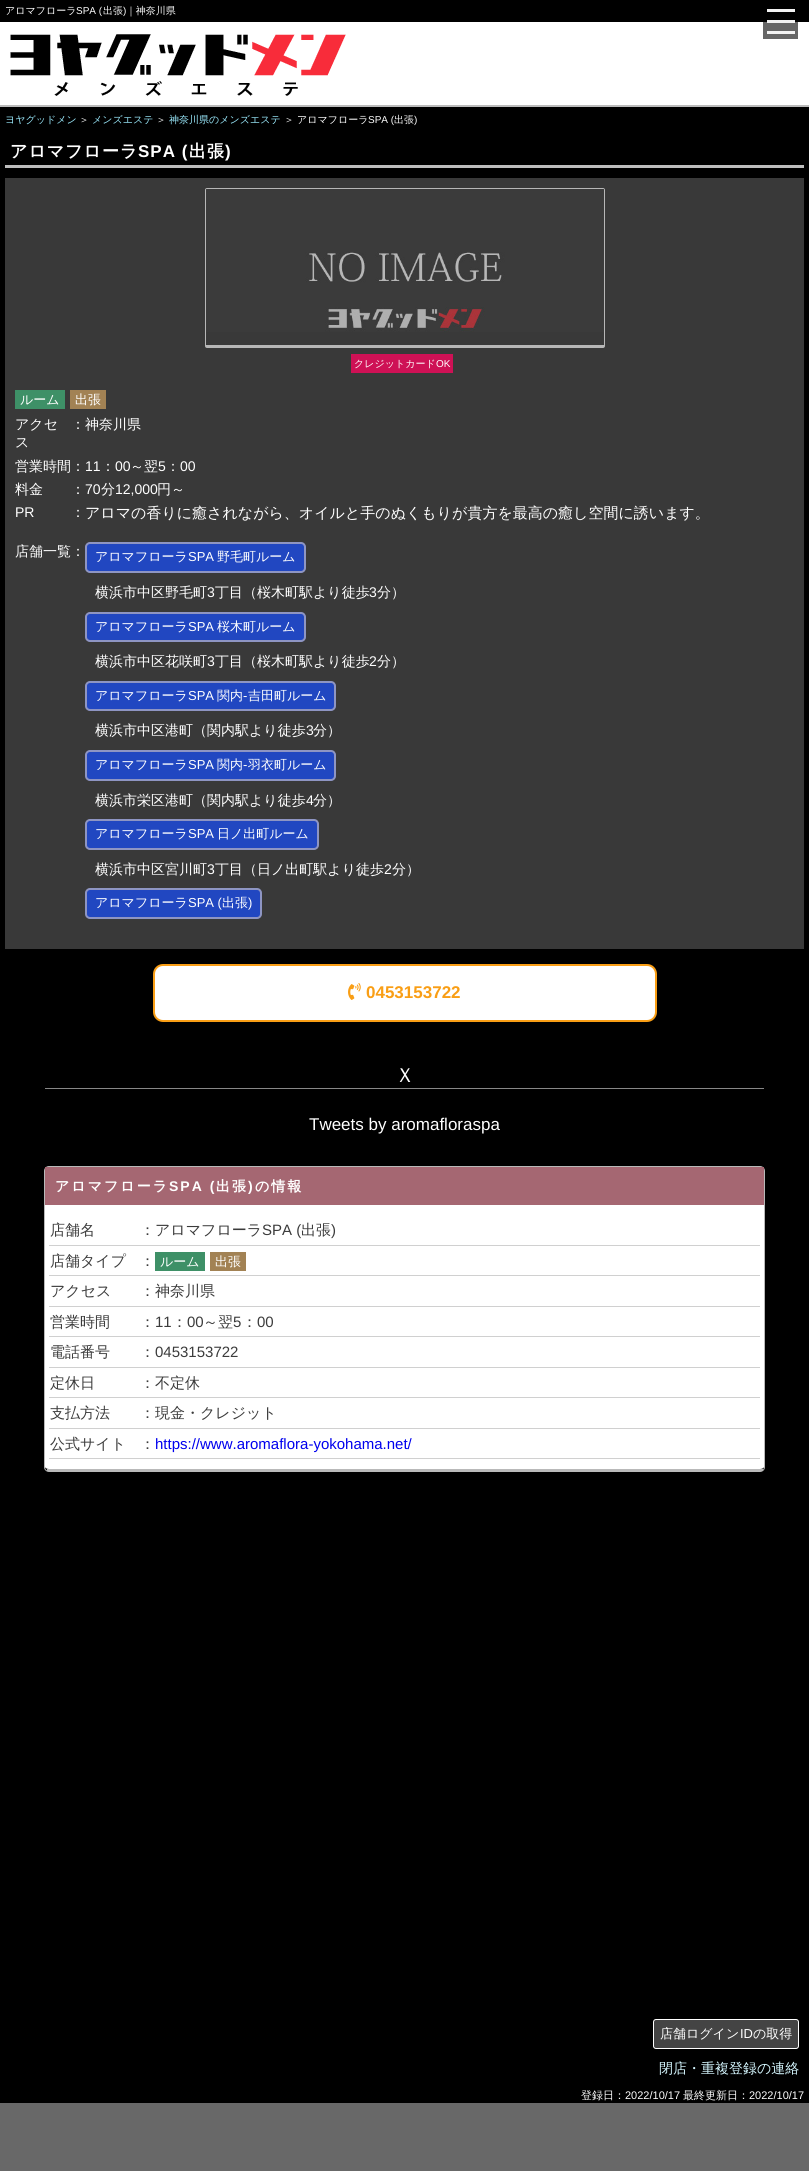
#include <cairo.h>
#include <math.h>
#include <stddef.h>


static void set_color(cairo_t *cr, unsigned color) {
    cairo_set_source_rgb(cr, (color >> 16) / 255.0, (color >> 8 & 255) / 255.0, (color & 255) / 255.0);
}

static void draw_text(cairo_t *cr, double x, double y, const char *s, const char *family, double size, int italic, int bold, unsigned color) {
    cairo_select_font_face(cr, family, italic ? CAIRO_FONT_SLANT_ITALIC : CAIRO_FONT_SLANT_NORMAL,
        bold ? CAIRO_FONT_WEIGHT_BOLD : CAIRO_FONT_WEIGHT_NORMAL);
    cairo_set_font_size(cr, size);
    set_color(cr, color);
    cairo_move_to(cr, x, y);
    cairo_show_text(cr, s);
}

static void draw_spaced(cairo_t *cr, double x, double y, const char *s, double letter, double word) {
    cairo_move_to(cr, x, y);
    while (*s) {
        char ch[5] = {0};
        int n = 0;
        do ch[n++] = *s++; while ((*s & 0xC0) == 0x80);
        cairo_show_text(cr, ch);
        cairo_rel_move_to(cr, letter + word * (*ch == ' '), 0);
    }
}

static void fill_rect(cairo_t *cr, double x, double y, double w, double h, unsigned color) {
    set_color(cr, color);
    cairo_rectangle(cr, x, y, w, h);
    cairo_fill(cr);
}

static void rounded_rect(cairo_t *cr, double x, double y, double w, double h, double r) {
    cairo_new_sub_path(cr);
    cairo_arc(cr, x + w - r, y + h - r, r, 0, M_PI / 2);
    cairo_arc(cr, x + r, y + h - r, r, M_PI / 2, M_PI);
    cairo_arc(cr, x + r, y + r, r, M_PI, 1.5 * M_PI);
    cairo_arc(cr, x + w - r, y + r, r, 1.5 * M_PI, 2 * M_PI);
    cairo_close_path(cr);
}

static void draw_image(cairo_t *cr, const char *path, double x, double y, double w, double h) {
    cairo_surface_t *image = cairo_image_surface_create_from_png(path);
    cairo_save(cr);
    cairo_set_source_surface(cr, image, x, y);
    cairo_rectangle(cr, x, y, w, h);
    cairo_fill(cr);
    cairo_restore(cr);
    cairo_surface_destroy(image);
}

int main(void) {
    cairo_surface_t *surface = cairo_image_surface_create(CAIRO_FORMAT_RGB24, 809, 2171);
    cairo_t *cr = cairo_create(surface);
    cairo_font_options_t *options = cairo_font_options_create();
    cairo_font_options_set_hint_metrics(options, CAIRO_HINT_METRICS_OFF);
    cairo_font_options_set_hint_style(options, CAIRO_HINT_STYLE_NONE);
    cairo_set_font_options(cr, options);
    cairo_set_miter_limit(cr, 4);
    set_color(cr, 0xFFFFFF);
    cairo_paint(cr);
    fill_rect(cr, 763, 22, 35, 17, 0x666666);
    fill_rect(cr, 0, 105, 809, 2, 0xBBBBBB);
    fill_rect(cr, 0, 0, 809, 22, 0x000000);
    draw_text(cr, 5, 14, "アロマフローラ", "WenQuanYi Zen Hei Medium", 10, 0, 0, 0xFFFFFF);
    draw_text(cr, 76, 14, "SPA (", "Liberation Sans", 10, 0, 0, 0xFFFFFF);
    draw_text(cr, 103, 14, "出張", "WenQuanYi Zen Hei Medium", 10, 0, 0, 0xFFFFFF);
    draw_text(cr, 123, 14, ")", "Liberation Sans", 10, 0, 0, 0xFFFFFF);
    draw_text(cr, 126, 14, "｜神奈川県", "WenQuanYi Zen Hei Medium", 10, 0, 0, 0xFFFFFF);
    fill_rect(cr, 767, 9, 28, 3, 0xF2F2F2);
    fill_rect(cr, 767, 20, 28, 3, 0xF2F2F2);
    fill_rect(cr, 767, 31, 28, 3, 0xF2F2F2);
    draw_image(cr, "assets/img1.png", 10, 34, 336, 62);
    fill_rect(cr, 0, 107, 809, 1996, 0x000000);
    draw_text(cr, 5, 123, "ヨヤグッドメン", "WenQuanYi Zen Hei Medium", 10, 0, 0, 0x9CECFF);
    draw_text(cr, 79, 123, "＞", "WenQuanYi Zen Hei Medium", 10, 0, 0, 0xFFFFFF);
    draw_text(cr, 92, 123, "メンズエステ", "WenQuanYi Zen Hei Medium", 10, 0, 0, 0x9CECFF);
    draw_text(cr, 156, 123, "＞", "WenQuanYi Zen Hei Medium", 10, 0, 0, 0xFFFFFF);
    draw_text(cr, 169, 123, "神奈川県のメンズエステ", "WenQuanYi Zen Hei Medium", 10, 0, 0, 0x9CECFF);
    draw_text(cr, 284, 123, "＞ アロマフローラ", "WenQuanYi Zen Hei Medium", 10, 0, 0, 0xFFFFFF);
    draw_text(cr, 368, 123, "SPA (", "Liberation Sans", 10, 0, 0, 0xFFFFFF);
    draw_text(cr, 394, 123, "出張", "WenQuanYi Zen Hei Medium", 10, 0, 0, 0xFFFFFF);
    draw_text(cr, 414, 123, ")", "Liberation Sans", 10, 0, 0, 0xFFFFFF);
    fill_rect(cr, 5, 165, 799, 3, 0xBDBDBD);
    cairo_select_font_face(cr, "WenQuanYi Zen Hei", CAIRO_FONT_SLANT_NORMAL, CAIRO_FONT_WEIGHT_BOLD);
    cairo_set_font_size(cr, 17);
    set_color(cr, 0xFFFFFF);
    draw_spaced(cr, 10, 157, "アロマフローラ", 1, 0);
    cairo_select_font_face(cr, "Liberation Sans", CAIRO_FONT_SLANT_NORMAL, CAIRO_FONT_WEIGHT_BOLD);
    draw_spaced(cr, 138, 157, "SPA (", 1, 0);
    cairo_select_font_face(cr, "WenQuanYi Zen Hei", CAIRO_FONT_SLANT_NORMAL, CAIRO_FONT_WEIGHT_BOLD);
    draw_spaced(cr, 189, 157, "出張", 1, 0);
    cairo_select_font_face(cr, "Liberation Sans", CAIRO_FONT_SLANT_NORMAL, CAIRO_FONT_WEIGHT_BOLD);
    draw_spaced(cr, 225, 157, ")", 1, 0);
    fill_rect(cr, 5, 178, 799, 771, 0x393939);
    rounded_rect(cr, 205.5, 188.5, 399, 159, 1.5);
    set_color(cr, 0xB7B7B7);
    cairo_set_line_width(cr, 1);
    cairo_stroke(cr);
    fill_rect(cr, 206, 345, 398, 2, 0xB7B7B7);
    draw_image(cr, "assets/img2.png", 206, 189, 398, 143);
    fill_rect(cr, 351, 354, 102, 19, 0xCE1155);
    draw_text(cr, 354, 367, "クレジットカード", "WenQuanYi Zen Hei Medium", 10, 0, 0, 0xFFFFFF);
    draw_text(cr, 436, 367, "OK", "Liberation Sans", 10, 0, 0, 0xFFFFFF);
    fill_rect(cr, 15, 390, 50, 19, 0x3E9067);
    draw_text(cr, 20, 404, "ルーム", "WenQuanYi Zen Hei Medium", 13, 0, 0, 0xFFFFFF);
    fill_rect(cr, 70, 390, 36, 19, 0xA28254);
    draw_text(cr, 75, 404, "出張", "WenQuanYi Zen Hei Medium", 13, 0, 0, 0xFFFFFF);
    draw_text(cr, 15, 429, "アクセ", "WenQuanYi Zen Hei Medium", 14, 0, 0, 0xFFFFFF);
    draw_text(cr, 15, 447, "ス", "WenQuanYi Zen Hei Medium", 14, 0, 0, 0xFFFFFF);
    draw_text(cr, 71, 429, "：", "WenQuanYi Zen Hei Medium", 14, 0, 0, 0xFFFFFF);
    draw_text(cr, 85, 429, "神奈川県", "WenQuanYi Zen Hei Medium", 14, 0, 0, 0xFFFFFF);
    draw_text(cr, 15, 471, "営業時間：", "WenQuanYi Zen Hei Medium", 14, 0, 0, 0xFFFFFF);
    draw_text(cr, 85, 471, "11", "Liberation Sans", 14, 0, 0, 0xFFFFFF);
    draw_text(cr, 101, 471, "：", "WenQuanYi Zen Hei Medium", 14, 0, 0, 0xFFFFFF);
    draw_text(cr, 115, 471, "00", "Liberation Sans", 14, 0, 0, 0xFFFFFF);
    draw_text(cr, 130, 471, "～翌", "WenQuanYi Zen Hei Medium", 14, 0, 0, 0xFFFFFF);
    draw_text(cr, 158, 471, "5", "Liberation Sans", 14, 0, 0, 0xFFFFFF);
    draw_text(cr, 166, 471, "：", "WenQuanYi Zen Hei Medium", 14, 0, 0, 0xFFFFFF);
    draw_text(cr, 180, 471, "00", "Liberation Sans", 14, 0, 0, 0xFFFFFF);
    draw_text(cr, 15, 494, "料金", "WenQuanYi Zen Hei Medium", 14, 0, 0, 0xFFFFFF);
    draw_text(cr, 71, 494, "：", "WenQuanYi Zen Hei Medium", 14, 0, 0, 0xFFFFFF);
    draw_text(cr, 85, 494, "70", "Liberation Sans", 14, 0, 0, 0xFFFFFF);
    draw_text(cr, 101, 494, "分", "WenQuanYi Zen Hei Medium", 14, 0, 0, 0xFFFFFF);
    draw_text(cr, 115, 494, "12,000", "Liberation Sans", 14, 0, 0, 0xFFFFFF);
    draw_text(cr, 157, 494, "円～", "WenQuanYi Zen Hei Medium", 14, 0, 0, 0xFFFFFF);
    draw_text(cr, 15, 517, "PR", "Liberation Sans", 14, 0, 0, 0xFFFFFF);
    draw_text(cr, 71, 517, "：", "WenQuanYi Zen Hei Medium", 14, 0, 0, 0xFFFFFF);
    draw_text(cr, 85, 518, "アロマの香りに癒されながら、オイルと手のぬくもりが貴方を最高の癒し空間に誘います。", "WenQuanYi Zen Hei Medium", 15, 0, 0, 0xFFFFFF);
    draw_text(cr, 15, 556, "店舗一覧：", "WenQuanYi Zen Hei Medium", 14, 0, 0, 0xFFFFFF);
    set_color(cr, 0x2147C1);
    rounded_rect(cr, 86, 543, 219, 29, 4);
    cairo_fill_preserve(cr);
    set_color(cr, 0x8E95C3);
    cairo_set_line_width(cr, 2);
    cairo_stroke(cr);
    draw_text(cr, 95, 561, "アロマフローラ", "WenQuanYi Zen Hei Medium", 13, 0, 0, 0xFFFFFF);
    draw_text(cr, 188, 561, "SPA", "Liberation Sans", 13, 0, 0, 0xFFFFFF);
    draw_text(cr, 217, 561, "野毛町ルーム", "WenQuanYi Zen Hei Medium", 13, 0, 0, 0xFFFFFF);
    draw_text(cr, 95, 597, "横浜市中区野毛町", "WenQuanYi Zen Hei Medium", 14, 0, 0, 0xFFFFFF);
    draw_text(cr, 207, 597, "3", "Liberation Sans", 14, 0, 0, 0xFFFFFF);
    draw_text(cr, 215, 597, "丁目（桜木町駅より徒歩", "WenQuanYi Zen Hei Medium", 14, 0, 0, 0xFFFFFF);
    draw_text(cr, 369, 597, "3", "Liberation Sans", 14, 0, 0, 0xFFFFFF);
    draw_text(cr, 377, 597, "分）", "WenQuanYi Zen Hei Medium", 14, 0, 0, 0xFFFFFF);
    set_color(cr, 0x2147C1);
    rounded_rect(cr, 86, 613, 219, 28, 4);
    cairo_fill_preserve(cr);
    set_color(cr, 0x8E95C3);
    cairo_stroke(cr);
    draw_text(cr, 95, 631, "アロマフローラ", "WenQuanYi Zen Hei Medium", 13, 0, 0, 0xFFFFFF);
    draw_text(cr, 188, 631, "SPA", "Liberation Sans", 13, 0, 0, 0xFFFFFF);
    draw_text(cr, 217, 631, "桜木町ルーム", "WenQuanYi Zen Hei Medium", 13, 0, 0, 0xFFFFFF);
    draw_text(cr, 95, 666, "横浜市中区花咲町", "WenQuanYi Zen Hei Medium", 14, 0, 0, 0xFFFFFF);
    draw_text(cr, 207, 666, "3", "Liberation Sans", 14, 0, 0, 0xFFFFFF);
    draw_text(cr, 215, 666, "丁目（桜木町駅より徒歩", "WenQuanYi Zen Hei Medium", 14, 0, 0, 0xFFFFFF);
    draw_text(cr, 369, 666, "2", "Liberation Sans", 14, 0, 0, 0xFFFFFF);
    draw_text(cr, 377, 666, "分）", "WenQuanYi Zen Hei Medium", 14, 0, 0, 0xFFFFFF);
    set_color(cr, 0x2147C1);
    rounded_rect(cr, 86, 682, 249, 28, 4);
    cairo_fill_preserve(cr);
    set_color(cr, 0x8E95C3);
    cairo_stroke(cr);
    draw_text(cr, 95, 700, "アロマフローラ", "WenQuanYi Zen Hei Medium", 13, 0, 0, 0xFFFFFF);
    draw_text(cr, 188, 700, "SPA", "Liberation Sans", 13, 0, 0, 0xFFFFFF);
    draw_text(cr, 217, 700, "関内", "WenQuanYi Zen Hei Medium", 13, 0, 0, 0xFFFFFF);
    draw_text(cr, 243, 700, "-", "Liberation Sans", 13, 0, 0, 0xFFFFFF);
    draw_text(cr, 248, 700, "吉田町ルーム", "WenQuanYi Zen Hei Medium", 13, 0, 0, 0xFFFFFF);
    draw_text(cr, 95, 735, "横浜市中区港町（関内駅より徒歩", "WenQuanYi Zen Hei Medium", 14, 0, 0, 0xFFFFFF);
    draw_text(cr, 306, 735, "3", "Liberation Sans", 14, 0, 0, 0xFFFFFF);
    draw_text(cr, 313, 735, "分）", "WenQuanYi Zen Hei Medium", 14, 0, 0, 0xFFFFFF);
    set_color(cr, 0x2147C1);
    rounded_rect(cr, 86, 751, 249, 29, 4);
    cairo_fill_preserve(cr);
    set_color(cr, 0x8E95C3);
    cairo_stroke(cr);
    draw_text(cr, 95, 769, "アロマフローラ", "WenQuanYi Zen Hei Medium", 13, 0, 0, 0xFFFFFF);
    draw_text(cr, 188, 769, "SPA", "Liberation Sans", 13, 0, 0, 0xFFFFFF);
    draw_text(cr, 217, 769, "関内", "WenQuanYi Zen Hei Medium", 13, 0, 0, 0xFFFFFF);
    draw_text(cr, 243, 769, "-", "Liberation Sans", 13, 0, 0, 0xFFFFFF);
    draw_text(cr, 248, 769, "羽衣町ルーム", "WenQuanYi Zen Hei Medium", 13, 0, 0, 0xFFFFFF);
    draw_text(cr, 95, 805, "横浜市栄区港町（関内駅より徒歩", "WenQuanYi Zen Hei Medium", 14, 0, 0, 0xFFFFFF);
    draw_text(cr, 306, 805, "4", "Liberation Sans", 14, 0, 0, 0xFFFFFF);
    draw_text(cr, 313, 805, "分）", "WenQuanYi Zen Hei Medium", 14, 0, 0, 0xFFFFFF);
    set_color(cr, 0x2147C1);
    rounded_rect(cr, 86, 820, 232, 29, 4);
    cairo_fill_preserve(cr);
    set_color(cr, 0x8E95C3);
    cairo_stroke(cr);
    draw_text(cr, 95, 838, "アロマフローラ", "WenQuanYi Zen Hei Medium", 13, 0, 0, 0xFFFFFF);
    draw_text(cr, 188, 838, "SPA", "Liberation Sans", 13, 0, 0, 0xFFFFFF);
    draw_text(cr, 217, 838, "日ノ出町ルーム", "WenQuanYi Zen Hei Medium", 13, 0, 0, 0xFFFFFF);
    draw_text(cr, 95, 874, "横浜市中区宮川町", "WenQuanYi Zen Hei Medium", 14, 0, 0, 0xFFFFFF);
    draw_text(cr, 207, 874, "3", "Liberation Sans", 14, 0, 0, 0xFFFFFF);
    draw_text(cr, 215, 874, "丁目（日ノ出町駅より徒歩", "WenQuanYi Zen Hei Medium", 14, 0, 0, 0xFFFFFF);
    draw_text(cr, 384, 874, "2", "Liberation Sans", 14, 0, 0, 0xFFFFFF);
    draw_text(cr, 392, 874, "分）", "WenQuanYi Zen Hei Medium", 14, 0, 0, 0xFFFFFF);
    set_color(cr, 0x2147C1);
    rounded_rect(cr, 86, 889, 175, 29, 4);
    cairo_fill_preserve(cr);
    set_color(cr, 0x8E95C3);
    cairo_stroke(cr);
    draw_text(cr, 95, 907, "アロマフローラ", "WenQuanYi Zen Hei Medium", 13, 0, 0, 0xFFFFFF);
    draw_text(cr, 188, 907, "SPA (", "Liberation Sans", 13, 0, 0, 0xFFFFFF);
    draw_text(cr, 222, 907, "出張", "WenQuanYi Zen Hei Medium", 13, 0, 0, 0xFFFFFF);
    draw_text(cr, 248, 907, ")", "Liberation Sans", 13, 0, 0, 0xFFFFFF);
    rounded_rect(cr, 154, 965, 502, 56, 9);
    cairo_fill_preserve(cr);
    set_color(cr, 0xF99E15);
    cairo_stroke(cr);
    draw_image(cr, "assets/img3.png", 348, 983, 13, 17);
    draw_text(cr, 366, 998, "0453153722", "Liberation Sans", 17, 0, 1, 0xF99E15);
    fill_rect(cr, 45, 1088, 719, 1, 0x878787);
    cairo_select_font_face(cr, "WenQuanYi Zen Hei Medium", CAIRO_FONT_SLANT_NORMAL, CAIRO_FONT_WEIGHT_NORMAL);
    cairo_set_font_size(cr, 20);
    set_color(cr, 0xFFFFFF);
    draw_spaced(cr, 395, 1082, "Ｘ", 2, 0);
    draw_text(cr, 309, 1130, "Tweets by aromafloraspa", "Liberation Sans", 17, 0, 0, 0xFFFFFF);
    cairo_new_path(cr);
    cairo_move_to(cr, 49, 1167);
    cairo_line_to(cr, 760, 1167);
    cairo_curve_to(cr, 762, 1167, 764, 1169, 764, 1171);
    cairo_line_to(cr, 764, 1467);
    cairo_curve_to(cr, 764, 1468, 762, 1469, 760, 1469);
    cairo_line_to(cr, 49, 1469);
    cairo_curve_to(cr, 47, 1469, 45, 1468, 45, 1467);
    cairo_line_to(cr, 45, 1171);
    cairo_curve_to(cr, 45, 1169, 47, 1167, 49, 1167);
    cairo_close_path(cr);
    cairo_fill(cr);
    rounded_rect(cr, 44.5, 1166.5, 720, 305, 4.5);
    set_color(cr, 0xB9B9B9);
    cairo_set_line_width(cr, 1);
    cairo_stroke(cr);
    fill_rect(cr, 47, 1469, 716, 2, 0xB9B9B9);
    fill_rect(cr, 45, 1167, 719, 38, 0xA56772);
    cairo_select_font_face(cr, "WenQuanYi Zen Hei", CAIRO_FONT_SLANT_NORMAL, CAIRO_FONT_WEIGHT_BOLD);
    cairo_set_font_size(cr, 14);
    set_color(cr, 0xFFFFFF);
    draw_spaced(cr, 55, 1191, "アロマフローラ", 2, 0);
    cairo_select_font_face(cr, "Liberation Sans", CAIRO_FONT_SLANT_NORMAL, CAIRO_FONT_WEIGHT_BOLD);
    draw_spaced(cr, 169, 1191, "SPA (", 2, 0);
    cairo_select_font_face(cr, "WenQuanYi Zen Hei", CAIRO_FONT_SLANT_NORMAL, CAIRO_FONT_WEIGHT_BOLD);
    draw_spaced(cr, 216, 1191, "出張", 2, 0);
    cairo_select_font_face(cr, "Liberation Sans", CAIRO_FONT_SLANT_NORMAL, CAIRO_FONT_WEIGHT_BOLD);
    draw_spaced(cr, 248, 1191, ")", 2, 0);
    cairo_select_font_face(cr, "WenQuanYi Zen Hei", CAIRO_FONT_SLANT_NORMAL, CAIRO_FONT_WEIGHT_BOLD);
    draw_spaced(cr, 255, 1191, "の情報", 2, 0);
    fill_rect(cr, 49, 1245, 711, 1, 0xD0D0D0);
    draw_text(cr, 50, 1235, "店舗名", "WenQuanYi Zen Hei Medium", 15, 0, 0, 0x3B3B3B);
    draw_text(cr, 140, 1235, "：", "WenQuanYi Zen Hei Medium", 15, 0, 0, 0x3B3B3B);
    draw_text(cr, 155, 1235, "アロマフローラ", "WenQuanYi Zen Hei Medium", 15, 0, 0, 0x3B3B3B);
    draw_text(cr, 262, 1235, "SPA (", "Liberation Sans", 15, 0, 0, 0x3B3B3B);
    draw_text(cr, 301, 1235, "出張", "WenQuanYi Zen Hei Medium", 15, 0, 0, 0x3B3B3B);
    draw_text(cr, 331, 1235, ")", "Liberation Sans", 15, 0, 0, 0x3B3B3B);
    fill_rect(cr, 49, 1275, 711, 1, 0xD0D0D0);
    draw_text(cr, 50, 1266, "店舗タイプ", "WenQuanYi Zen Hei Medium", 15, 0, 0, 0x3B3B3B);
    draw_text(cr, 140, 1266, "：", "WenQuanYi Zen Hei Medium", 15, 0, 0, 0x3B3B3B);
    fill_rect(cr, 155, 1252, 50, 19, 0x3E9067);
    draw_text(cr, 160, 1266, "ルーム", "WenQuanYi Zen Hei Medium", 13, 0, 0, 0xFFFFFF);
    fill_rect(cr, 210, 1252, 36, 19, 0xA28254);
    draw_text(cr, 215, 1266, "出張", "WenQuanYi Zen Hei Medium", 13, 0, 0, 0xFFFFFF);
    fill_rect(cr, 49, 1306, 711, 1, 0xD0D0D0);
    draw_text(cr, 50, 1296, "アクセス", "WenQuanYi Zen Hei Medium", 15, 0, 0, 0x3B3B3B);
    draw_text(cr, 140, 1296, "：", "WenQuanYi Zen Hei Medium", 15, 0, 0, 0x3B3B3B);
    draw_text(cr, 155, 1296, "神奈川県", "WenQuanYi Zen Hei Medium", 15, 0, 0, 0x3B3B3B);
    fill_rect(cr, 49, 1336, 711, 1, 0xD0D0D0);
    draw_text(cr, 50, 1327, "営業時間", "WenQuanYi Zen Hei Medium", 15, 0, 0, 0x3B3B3B);
    draw_text(cr, 140, 1327, "：", "WenQuanYi Zen Hei Medium", 15, 0, 0, 0x3B3B3B);
    draw_text(cr, 155, 1327, "11", "Liberation Sans", 15, 0, 0, 0x3B3B3B);
    draw_text(cr, 172, 1327, "：", "WenQuanYi Zen Hei Medium", 15, 0, 0, 0x3B3B3B);
    draw_text(cr, 187, 1327, "00", "Liberation Sans", 15, 0, 0, 0x3B3B3B);
    draw_text(cr, 203, 1327, "～翌", "WenQuanYi Zen Hei Medium", 15, 0, 0, 0x3B3B3B);
    draw_text(cr, 233, 1327, "5", "Liberation Sans", 15, 0, 0, 0x3B3B3B);
    draw_text(cr, 242, 1327, "：", "WenQuanYi Zen Hei Medium", 15, 0, 0, 0x3B3B3B);
    draw_text(cr, 257, 1327, "00", "Liberation Sans", 15, 0, 0, 0x3B3B3B);
    fill_rect(cr, 49, 1367, 711, 1, 0xD0D0D0);
    draw_text(cr, 50, 1357, "電話番号", "WenQuanYi Zen Hei Medium", 15, 0, 0, 0x3B3B3B);
    draw_text(cr, 140, 1357, "：", "WenQuanYi Zen Hei Medium", 15, 0, 0, 0x3B3B3B);
    draw_text(cr, 155, 1357, "0453153722", "Liberation Sans", 15, 0, 0, 0x3B3B3B);
    fill_rect(cr, 49, 1397, 711, 1, 0xD0D0D0);
    draw_text(cr, 50, 1388, "定休日", "WenQuanYi Zen Hei Medium", 15, 0, 0, 0x3B3B3B);
    draw_text(cr, 140, 1388, "：", "WenQuanYi Zen Hei Medium", 15, 0, 0, 0x3B3B3B);
    draw_text(cr, 155, 1388, "不定休", "WenQuanYi Zen Hei Medium", 15, 0, 0, 0x3B3B3B);
    fill_rect(cr, 49, 1428, 711, 1, 0xD0D0D0);
    draw_text(cr, 50, 1418, "支払方法", "WenQuanYi Zen Hei Medium", 15, 0, 0, 0x3B3B3B);
    draw_text(cr, 140, 1418, "：", "WenQuanYi Zen Hei Medium", 15, 0, 0, 0x3B3B3B);
    draw_text(cr, 155, 1418, "現金・クレジット", "WenQuanYi Zen Hei Medium", 15, 0, 0, 0x3B3B3B);
    fill_rect(cr, 49, 1458, 711, 1, 0xD0D0D0);
    draw_text(cr, 50, 1449, "公式サイト", "WenQuanYi Zen Hei Medium", 15, 0, 0, 0x3B3B3B);
    draw_text(cr, 140, 1449, "：", "WenQuanYi Zen Hei Medium", 15, 0, 0, 0x3B3B3B);
    draw_text(cr, 155, 1449, "https://www.aromaflora-yokohama.net/", "Liberation Sans", 15, 0, 0, 0x0000EE);
    set_color(cr, 0x444444);
    rounded_rect(cr, 653.5, 2019.5, 145, 29, 2.5);
    cairo_fill_preserve(cr);
    set_color(cr, 0xFFFFFF);
    cairo_stroke(cr);
    draw_text(cr, 660, 2038, "店舗ログイン", "WenQuanYi Zen Hei Medium", 13, 0, 0, 0xFFFFFF);
    draw_text(cr, 740, 2038, "ID", "Liberation Sans", 13, 0, 0, 0xFFFFFF);
    draw_text(cr, 753, 2038, "の取得", "WenQuanYi Zen Hei Medium", 13, 0, 0, 0xFFFFFF);
    draw_text(cr, 659, 2073, "閉店・重複登録の連絡", "WenQuanYi Zen Hei Medium", 14, 0, 0, 0xD5F7FF);
    draw_text(cr, 581, 2099, "登録日：", "WenQuanYi Zen Hei Medium", 11, 0, 0, 0xFFFFFF);
    draw_text(cr, 625, 2099, "2022/10/17", "Liberation Sans", 11, 0, 0, 0xFFFFFF);
    draw_text(cr, 683, 2099, "最終更新日：", "WenQuanYi Zen Hei Medium", 11, 0, 0, 0xFFFFFF);
    draw_text(cr, 749, 2099, "2022/10/17", "Liberation Sans", 11, 0, 0, 0xFFFFFF);
    fill_rect(cr, 0, 2103, 809, 68, 0x686868);
    cairo_surface_write_to_png(surface, "output.png");
    cairo_font_options_destroy(options);
    cairo_destroy(cr);
    cairo_surface_destroy(surface);
    return 0;
}
